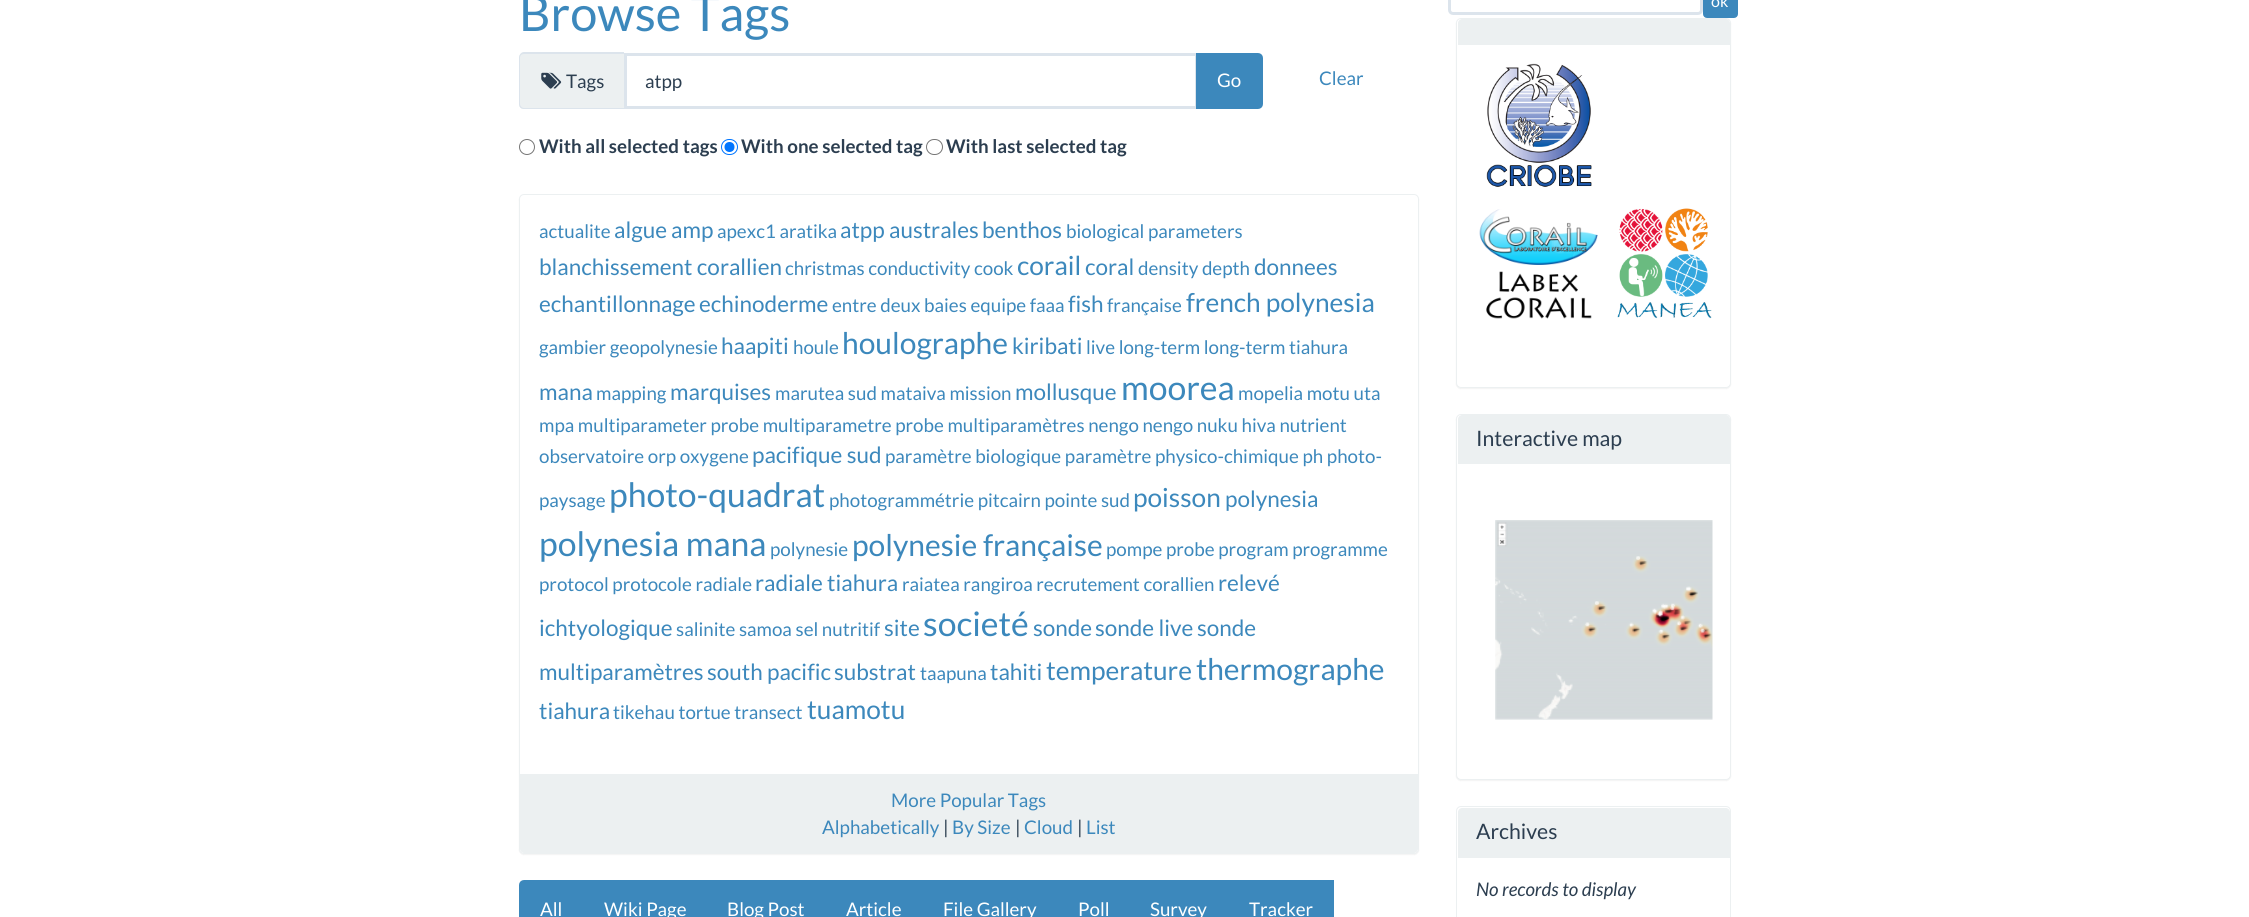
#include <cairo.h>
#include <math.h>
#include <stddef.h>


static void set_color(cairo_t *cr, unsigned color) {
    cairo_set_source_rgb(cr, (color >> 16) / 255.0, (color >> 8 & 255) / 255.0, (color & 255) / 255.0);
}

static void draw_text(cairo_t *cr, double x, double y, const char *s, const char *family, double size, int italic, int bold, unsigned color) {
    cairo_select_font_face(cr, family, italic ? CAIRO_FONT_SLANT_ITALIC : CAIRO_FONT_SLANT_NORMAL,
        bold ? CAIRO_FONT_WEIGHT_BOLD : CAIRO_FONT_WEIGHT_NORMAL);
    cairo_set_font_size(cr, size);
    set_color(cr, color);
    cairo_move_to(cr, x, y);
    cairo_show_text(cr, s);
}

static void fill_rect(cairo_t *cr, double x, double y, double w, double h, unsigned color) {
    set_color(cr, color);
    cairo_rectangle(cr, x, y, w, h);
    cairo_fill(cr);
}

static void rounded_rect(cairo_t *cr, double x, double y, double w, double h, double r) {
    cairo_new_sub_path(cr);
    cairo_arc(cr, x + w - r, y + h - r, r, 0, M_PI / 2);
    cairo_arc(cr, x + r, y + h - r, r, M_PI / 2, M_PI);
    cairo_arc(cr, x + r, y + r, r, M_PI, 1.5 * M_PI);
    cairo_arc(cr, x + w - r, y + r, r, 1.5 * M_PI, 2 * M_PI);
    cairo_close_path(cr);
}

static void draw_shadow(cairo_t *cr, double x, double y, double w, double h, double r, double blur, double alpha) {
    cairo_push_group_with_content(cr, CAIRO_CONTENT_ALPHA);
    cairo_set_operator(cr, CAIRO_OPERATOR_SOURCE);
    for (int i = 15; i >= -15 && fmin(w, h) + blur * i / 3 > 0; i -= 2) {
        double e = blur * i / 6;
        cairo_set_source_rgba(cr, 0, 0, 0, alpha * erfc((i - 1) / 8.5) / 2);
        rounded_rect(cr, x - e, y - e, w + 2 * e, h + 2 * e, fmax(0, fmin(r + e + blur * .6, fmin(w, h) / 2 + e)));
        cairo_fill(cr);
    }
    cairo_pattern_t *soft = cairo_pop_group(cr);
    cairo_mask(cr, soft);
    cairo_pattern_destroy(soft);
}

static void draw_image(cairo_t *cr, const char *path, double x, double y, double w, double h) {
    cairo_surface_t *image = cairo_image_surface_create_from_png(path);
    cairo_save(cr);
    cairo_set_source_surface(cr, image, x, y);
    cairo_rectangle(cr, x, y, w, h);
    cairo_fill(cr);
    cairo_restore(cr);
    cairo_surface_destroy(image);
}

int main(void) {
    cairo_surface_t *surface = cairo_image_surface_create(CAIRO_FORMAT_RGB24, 2249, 917);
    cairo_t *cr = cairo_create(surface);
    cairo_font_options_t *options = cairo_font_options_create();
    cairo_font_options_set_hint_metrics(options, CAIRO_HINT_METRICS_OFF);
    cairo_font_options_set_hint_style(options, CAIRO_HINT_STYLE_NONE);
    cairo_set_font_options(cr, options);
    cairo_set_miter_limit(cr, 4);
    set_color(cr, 0xFFFFFF);
    cairo_paint(cr);
    draw_text(cr, 519, 31, "Browse Tags", "Lato", 48.75, 0, 0, 0x3C88BC);
    set_color(cr, 0xECF0F1);
    cairo_new_path(cr);
    cairo_move_to(cr, 524, 53);
    cairo_line_to(cr, 624, 53);
    cairo_line_to(cr, 624, 109);
    cairo_line_to(cr, 524, 109);
    cairo_curve_to(cr, 521, 109, 519, 107, 519, 104);
    cairo_line_to(cr, 519, 58);
    cairo_curve_to(cr, 519, 55, 521, 53, 524, 53);
    cairo_close_path(cr);
    cairo_fill(cr);
    set_color(cr, 0xDCE4EC);
    cairo_set_fill_rule(cr, CAIRO_FILL_RULE_EVEN_ODD);
    cairo_new_path(cr);
    cairo_move_to(cr, 524, 52);
    cairo_line_to(cr, 624, 52);
    cairo_line_to(cr, 624, 109);
    cairo_line_to(cr, 524, 109);
    cairo_curve_to(cr, 521, 109, 519, 107, 519, 104);
    cairo_line_to(cr, 519, 58);
    cairo_curve_to(cr, 519, 55, 521, 52, 524, 52);
    cairo_close_path(cr);
    cairo_move_to(cr, 524, 54);
    cairo_line_to(cr, 624, 54);
    cairo_line_to(cr, 624, 108);
    cairo_line_to(cr, 524, 108);
    cairo_curve_to(cr, 522, 108, 520, 106, 520, 104);
    cairo_line_to(cr, 520, 58);
    cairo_curve_to(cr, 520, 55, 522, 54, 524, 54);
    cairo_close_path(cr);
    cairo_fill(cr);
    draw_image(cr, "assets/img1.png", 541, 72, 21, 17);
    draw_text(cr, 566, 88, "Tags", "Lato", 18.75, 0, 0, 0x2C3E50);
    cairo_rectangle(cr, 625.5, 54.5, 571, 53);
    set_color(cr, 0xDCE4EC);
    cairo_set_line_width(cr, 3);
    cairo_stroke(cr);
    cairo_save(cr);
    cairo_set_fill_rule(cr, CAIRO_FILL_RULE_WINDING);
    cairo_rectangle(cr, 645, 69, 531, 22);
    cairo_clip(cr);
    draw_text(cr, 645, 88, "atpp", "Lato", 18.75, 0, 0, 0x2C3E50);
    cairo_restore(cr);
    set_color(cr, 0x3C88BC);
    cairo_new_path(cr);
    cairo_move_to(cr, 1197.5, 54.5);
    cairo_line_to(cr, 1258, 54.5);
    cairo_curve_to(cr, 1260, 54.5, 1261.5, 56, 1261.5, 58);
    cairo_line_to(cr, 1261.5, 104);
    cairo_curve_to(cr, 1261.5, 106, 1260, 107.5, 1258, 107.5);
    cairo_line_to(cr, 1197.5, 107.5);
    cairo_close_path(cr);
    cairo_fill_preserve(cr);
    cairo_stroke(cr);
    draw_text(cr, 1217, 87, "Go", "Lato", 18.75, 0, 0, 0xFFFFFF);
    draw_text(cr, 1319, 85, "Clear", "Lato", 18.75, 0, 0, 0x3C88BC);
    cairo_new_path(cr);
    cairo_arc(cr, 527, 147, 7.5, 0, 2 * M_PI);
    set_color(cr, 0x767676);
    cairo_set_line_width(cr, 1);
    cairo_stroke(cr);
    draw_text(cr, 539, 153, "With all selected tags", "Lato", 18.75, 0, 1, 0x2C3E50);
    rounded_rect(cr, 721.5, 139.5, 16, 15, 7.5);
    set_color(cr, 0x0075FF);
    cairo_stroke(cr);
    cairo_arc(cr, 729.5, 147, 5, 0, 2 * M_PI);
    cairo_fill(cr);
    draw_text(cr, 741, 153, "With one selected tag", "Lato", 18.75, 0, 1, 0x2C3E50);
    rounded_rect(cr, 926.5, 139.5, 16, 15, 7.5);
    set_color(cr, 0x767676);
    cairo_stroke(cr);
    draw_text(cr, 946, 153, "With last selected tag", "Lato", 18.75, 0, 1, 0x2C3E50);
    set_color(cr, 0x000000);
    draw_shadow(cr, 519, 195, 900, 660, 5, 0.5, 0.05);
    set_color(cr, 0xFFFFFF);
    rounded_rect(cr, 519.5, 194.5, 899, 659, 4.5);
    cairo_fill_preserve(cr);
    set_color(cr, 0xECF0F1);
    cairo_stroke(cr);
    draw_text(cr, 539, 238, "actualite", "Lato", 18.75, 0, 0, 0x3C88BC);
    draw_text(cr, 614, 238, "algue", "Lato", 22.5, 0, 0, 0x3C88BC);
    draw_text(cr, 671, 238, "amp", "Lato", 22.5, 0, 0, 0x3C88BC);
    draw_text(cr, 717, 238, "apexc1 aratika", "Lato", 18.75, 0, 0, 0x3C88BC);
    draw_text(cr, 840, 238, "atpp", "Lato", 22.5, 0, 0, 0x3C88BC);
    draw_text(cr, 889, 238, "australes", "Lato", 22.5, 0, 0, 0x3C88BC);
    draw_text(cr, 982, 238, "benthos", "Lato", 22.5, 0, 0, 0x3C88BC);
    draw_text(cr, 1066, 238, "biological parameters", "Lato", 18.75, 0, 0, 0x3C88BC);
    draw_text(cr, 539, 275, "blanchissement corallien", "Lato", 22.5, 0, 0, 0x3C88BC);
    draw_text(cr, 785, 275, "christmas conductivity cook", "Lato", 18.75, 0, 0, 0x3C88BC);
    draw_text(cr, 1017, 275, "corail", "Lato", 26.25, 0, 0, 0x3C88BC);
    draw_text(cr, 1085, 275, "coral", "Lato", 22.5, 0, 0, 0x3C88BC);
    draw_text(cr, 1138, 275, "density depth", "Lato", 18.75, 0, 0, 0x3C88BC);
    draw_text(cr, 1254, 275, "donnees", "Lato", 22.5, 0, 0, 0x3C88BC);
    draw_text(cr, 539, 312, "echantillonnage", "Lato", 22.5, 0, 0, 0x3C88BC);
    draw_text(cr, 699, 312, "echinoderme", "Lato", 22.5, 0, 0, 0x3C88BC);
    draw_text(cr, 832, 312, "entre deux baies equipe faaa", "Lato", 18.75, 0, 0, 0x3C88BC);
    draw_text(cr, 1068, 312, "fish", "Lato", 22.5, 0, 0, 0x3C88BC);
    draw_text(cr, 1107, 312, "française", "Lato", 18.75, 0, 0, 0x3C88BC);
    draw_text(cr, 1186, 312, "french polynesia", "Lato", 26.25, 0, 0, 0x3C88BC);
    draw_text(cr, 539, 354, "gambier geopolynesie", "Lato", 18.75, 0, 0, 0x3C88BC);
    draw_text(cr, 721, 354, "haapiti", "Lato", 22.5, 0, 0, 0x3C88BC);
    draw_text(cr, 793, 354, "houle", "Lato", 18.75, 0, 0, 0x3C88BC);
    draw_text(cr, 842, 354, "houlographe", "Lato", 30, 0, 0, 0x3C88BC);
    draw_text(cr, 1012, 354, "kiribati", "Lato", 22.5, 0, 0, 0x3C88BC);
    draw_text(cr, 1086, 354, "live long-term long-term tiahura", "Lato", 18.75, 0, 0, 0x3C88BC);
    draw_text(cr, 539, 400, "mana", "Lato", 22.5, 0, 0, 0x3C88BC);
    draw_text(cr, 596, 400, "mapping", "Lato", 18.75, 0, 0, 0x3C88BC);
    draw_text(cr, 670, 400, "marquises", "Lato", 22.5, 0, 0, 0x3C88BC);
    draw_text(cr, 775, 400, "marutea sud mataiva mission", "Lato", 18.75, 0, 0, 0x3C88BC);
    draw_text(cr, 1015, 400, "mollusque", "Lato", 22.5, 0, 0, 0x3C88BC);
    draw_text(cr, 1121, 400, "moorea", "Lato", 33.75, 0, 0, 0x3C88BC);
    draw_text(cr, 1238, 400, "mopelia motu uta", "Lato", 18.75, 0, 0, 0x3C88BC);
    draw_text(cr, 539, 432, "mpa multiparameter probe multiparametre probe multiparamètres nengo nengo nuku hiva nutrient", "Lato", 18.75, 0, 0, 0x3C88BC);
    draw_text(cr, 539, 463, "observatoire orp oxygene", "Lato", 18.75, 0, 0, 0x3C88BC);
    draw_text(cr, 752, 463, "pacifique sud", "Lato", 22.5, 0, 0, 0x3C88BC);
    draw_text(cr, 885, 463, "paramètre biologique paramètre physico-chimique ph photo-", "Lato", 18.75, 0, 0, 0x3C88BC);
    draw_text(cr, 539, 507, "paysage", "Lato", 18.75, 0, 0, 0x3C88BC);
    draw_text(cr, 609, 507, "photo-quadrat", "Lato", 33.75, 0, 0, 0x3C88BC);
    draw_text(cr, 829, 507, "photogrammétrie pitcairn pointe sud", "Lato", 18.75, 0, 0, 0x3C88BC);
    draw_text(cr, 1133, 507, "poisson", "Lato", 26.25, 0, 0, 0x3C88BC);
    draw_text(cr, 1225, 507, "polynesia", "Lato", 22.5, 0, 0, 0x3C88BC);
    draw_text(cr, 539, 556, "polynesia mana", "Lato", 33.75, 0, 0, 0x3C88BC);
    draw_text(cr, 770, 556, "polynesie", "Lato", 18.75, 0, 0, 0x3C88BC);
    draw_text(cr, 852, 556, "polynesie française", "Lato", 30, 0, 0, 0x3C88BC);
    draw_text(cr, 1106, 556, "pompe probe program programme", "Lato", 18.75, 0, 0, 0x3C88BC);
    draw_text(cr, 539, 591, "protocol protocole radiale", "Lato", 18.75, 0, 0, 0x3C88BC);
    draw_text(cr, 755, 591, "radiale tiahura", "Lato", 22.5, 0, 0, 0x3C88BC);
    draw_text(cr, 902, 591, "raiatea rangiroa recrutement corallien", "Lato", 18.75, 0, 0, 0x3C88BC);
    draw_text(cr, 1218, 591, "relevé", "Lato", 22.5, 0, 0, 0x3C88BC);
    draw_text(cr, 539, 636, "ichtyologique", "Lato", 22.5, 0, 0, 0x3C88BC);
    draw_text(cr, 676, 636, "salinite samoa sel nutritif", "Lato", 18.75, 0, 0, 0x3C88BC);
    draw_text(cr, 884, 636, "site", "Lato", 22.5, 0, 0, 0x3C88BC);
    draw_text(cr, 923, 636, "societé", "Lato", 33.75, 0, 0, 0x3C88BC);
    draw_text(cr, 1033, 636, "sonde", "Lato", 22.5, 0, 0, 0x3C88BC);
    draw_text(cr, 1095, 636, "sonde live", "Lato", 22.5, 0, 0, 0x3C88BC);
    draw_text(cr, 1197, 636, "sonde", "Lato", 22.5, 0, 0, 0x3C88BC);
    draw_text(cr, 539, 680, "multiparamètres", "Lato", 22.5, 0, 0, 0x3C88BC);
    draw_text(cr, 707, 680, "south pacific", "Lato", 22.5, 0, 0, 0x3C88BC);
    draw_text(cr, 834, 680, "substrat", "Lato", 22.5, 0, 0, 0x3C88BC);
    draw_text(cr, 920, 680, "taapuna", "Lato", 18.75, 0, 0, 0x3C88BC);
    draw_text(cr, 990, 680, "tahiti", "Lato", 22.5, 0, 0, 0x3C88BC);
    draw_text(cr, 1046, 680, "temperature", "Lato", 26.25, 0, 0, 0x3C88BC);
    draw_text(cr, 1196, 680, "thermographe", "Lato", 30, 0, 0, 0x3C88BC);
    draw_text(cr, 539, 719, "tiahura", "Lato", 22.5, 0, 0, 0x3C88BC);
    draw_text(cr, 613, 719, "tikehau tortue transect", "Lato", 18.75, 0, 0, 0x3C88BC);
    draw_text(cr, 807, 719, "tuamotu", "Lato", 26.25, 0, 0, 0x3C88BC);
    set_color(cr, 0xECF0F1);
    cairo_new_path(cr);
    cairo_move_to(cr, 520, 774);
    cairo_line_to(cr, 1418, 774);
    cairo_line_to(cr, 1418, 849);
    cairo_curve_to(cr, 1418, 851, 1416, 853, 1414, 853);
    cairo_line_to(cr, 524, 853);
    cairo_curve_to(cr, 522, 853, 520, 851, 520, 849);
    cairo_close_path(cr);
    cairo_fill(cr);
    draw_text(cr, 891, 807, "More Popular Tags", "Lato", 18.75, 0, 0, 0x3C88BC);
    draw_text(cr, 822, 834, "Alphabetically", "Lato", 18.75, 0, 0, 0x3C88BC);
    draw_text(cr, 943, 834, "|", "Lato", 18.75, 0, 0, 0x2C3E50);
    draw_text(cr, 952, 834, "By Size", "Lato", 18.75, 0, 0, 0x3C88BC);
    draw_text(cr, 1015, 834, "|", "Lato", 18.75, 0, 0, 0x2C3E50);
    draw_text(cr, 1024, 834, "Cloud", "Lato", 18.75, 0, 0, 0x3C88BC);
    draw_text(cr, 1077, 834, "|", "Lato", 18.75, 0, 0, 0x2C3E50);
    draw_text(cr, 1086, 834, "List", "Lato", 18.75, 0, 0, 0x3C88BC);
    cairo_new_path(cr);
    cairo_move_to(cr, 524, 881.5);
    cairo_line_to(cr, 582.5, 881.5);
    cairo_line_to(cr, 582.5, 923.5);
    cairo_line_to(cr, 524, 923.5);
    cairo_curve_to(cr, 522, 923.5, 520.5, 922, 520.5, 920);
    cairo_line_to(cr, 520.5, 885);
    cairo_curve_to(cr, 520.5, 883, 522, 881.5, 524, 881.5);
    cairo_close_path(cr);
    cairo_fill_preserve(cr);
    cairo_set_line_width(cr, 3);
    cairo_stroke(cr);
    draw_text(cr, 540, 916, "All", "Lato", 18.75, 0, 0, 0xFFFFFF);
    fill_rect(cr, 584, 880, 750, 37, 0x3C88BC);
    draw_text(cr, 604, 916, "Wiki Page", "Lato", 18.75, 0, 0, 0xFFFFFF);
    draw_text(cr, 727, 916, "Blog Post", "Lato", 18.75, 0, 0, 0xFFFFFF);
    draw_text(cr, 846, 916, "Article", "Lato", 18.75, 0, 0, 0xFFFFFF);
    draw_text(cr, 943, 916, "File Gallery", "Lato", 18.75, 0, 0, 0xFFFFFF);
    draw_text(cr, 1078, 916, "Poll", "Lato", 18.75, 0, 0, 0xFFFFFF);
    draw_text(cr, 1150, 916, "Survey", "Lato", 18.75, 0, 0, 0xFFFFFF);
    draw_text(cr, 1249, 916, "Tracker", "Lato", 18.75, 0, 0, 0xFFFFFF);
    rounded_rect(cr, 1449.5, -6.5, 252, 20, 3.5);
    set_color(cr, 0xDCE4EC);
    cairo_stroke(cr);
    set_color(cr, 0x000000);
    draw_shadow(cr, 1456, 19, 275, 370, 5, 0.5, 0.05);
    set_color(cr, 0x3C88BC);
    rounded_rect(cr, 1704.5, -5.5, 32, 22, 2.5);
    cairo_fill_preserve(cr);
    cairo_stroke(cr);
    draw_text(cr, 1711, 7, "ok", "Lato", 16, 0, 0, 0xFFFFFF);
    rounded_rect(cr, 1456.5, 18.5, 274, 369, 4.5);
    cairo_fill_preserve(cr);
    set_color(cr, 0xECF0F1);
    cairo_set_line_width(cr, 1);
    cairo_stroke(cr);
    cairo_new_path(cr);
    cairo_move_to(cr, 1462, 19);
    cairo_line_to(cr, 1726, 19);
    cairo_curve_to(cr, 1728, 19, 1730, 21, 1730, 23);
    cairo_line_to(cr, 1730, 45);
    cairo_line_to(cr, 1458, 45);
    cairo_line_to(cr, 1458, 23);
    cairo_curve_to(cr, 1458, 21, 1460, 19, 1462, 19);
    cairo_close_path(cr);
    cairo_fill(cr);
    draw_image(cr, "assets/img2.png", 1486, 63, 106, 124);
    draw_image(cr, "assets/img3.png", 1479, 209, 119, 110);
    draw_image(cr, "assets/img4.png", 1617, 208, 95, 111);
    set_color(cr, 0x000000);
    draw_shadow(cr, 1456, 415, 275, 366, 5, 0.5, 0.05);
    set_color(cr, 0xFFFFFF);
    rounded_rect(cr, 1456.5, 414.5, 274, 365, 4.5);
    cairo_fill_preserve(cr);
    set_color(cr, 0xECF0F1);
    cairo_stroke(cr);
    cairo_new_path(cr);
    cairo_move_to(cr, 1462, 415);
    cairo_line_to(cr, 1726, 415);
    cairo_curve_to(cr, 1728, 415, 1730, 417, 1730, 419);
    cairo_line_to(cr, 1730, 464);
    cairo_line_to(cr, 1458, 464);
    cairo_line_to(cr, 1458, 419);
    cairo_curve_to(cr, 1458, 417, 1460, 415, 1462, 415);
    cairo_close_path(cr);
    cairo_fill(cr);
    draw_text(cr, 1476, 446, "Interactive map", "Lato", 21.25, 0, 0, 0x2C3E50);
    draw_image(cr, "assets/img5.png", 1495, 520, 218, 200);
    rounded_rect(cr, 1456.5, 806.5, 274, 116, 4.5);
    set_color(cr, 0xECF0F1);
    cairo_stroke(cr);
    cairo_new_path(cr);
    cairo_move_to(cr, 1462, 808);
    cairo_line_to(cr, 1726, 808);
    cairo_curve_to(cr, 1728, 808, 1730, 810, 1730, 812);
    cairo_line_to(cr, 1730, 858);
    cairo_line_to(cr, 1458, 858);
    cairo_line_to(cr, 1458, 812);
    cairo_curve_to(cr, 1458, 810, 1460, 808, 1462, 808);
    cairo_close_path(cr);
    cairo_fill(cr);
    draw_text(cr, 1476, 839, "Archives", "Lato", 21.25, 0, 0, 0x2C3E50);
    draw_text(cr, 1476, 896, "No records to display", "Lato", 18.75, 1, 0, 0x2C3E50);
    cairo_surface_write_to_png(surface, "output.png");
    cairo_font_options_destroy(options);
    cairo_destroy(cr);
    cairo_surface_destroy(surface);
    return 0;
}
